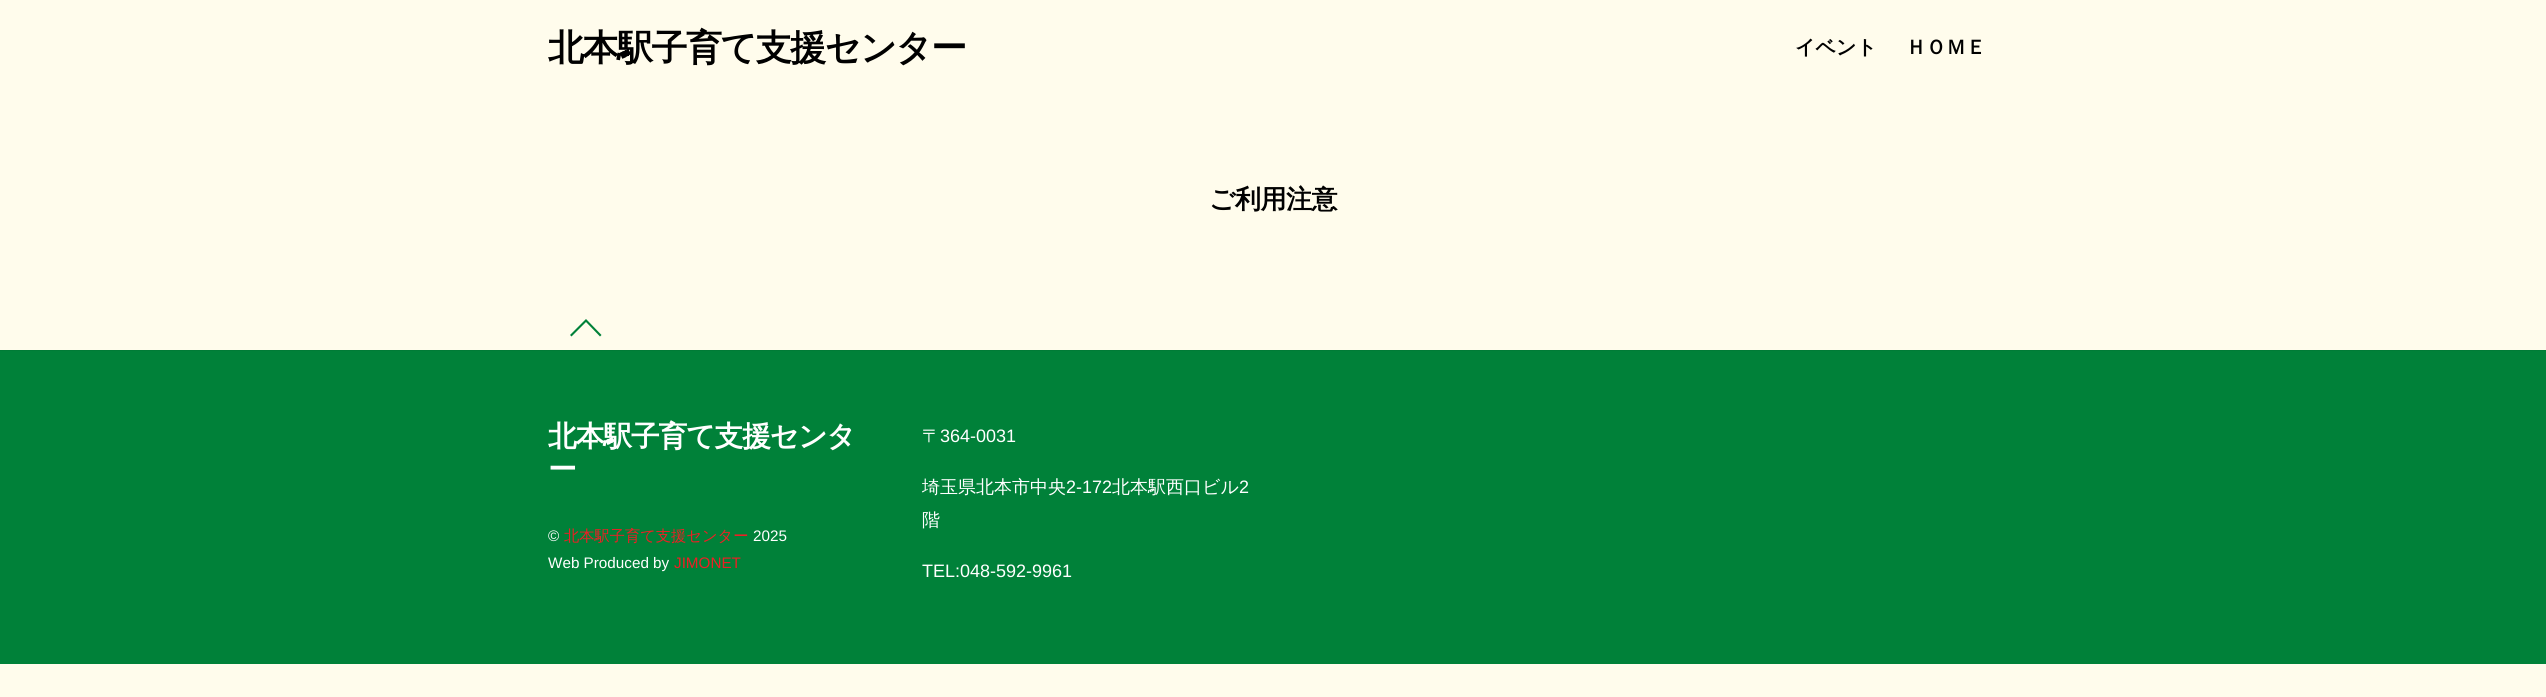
#include <cairo.h>
#include <math.h>
#include <stddef.h>


static void set_color(cairo_t *cr, unsigned color) {
    cairo_set_source_rgb(cr, (color >> 16) / 255.0, (color >> 8 & 255) / 255.0, (color & 255) / 255.0);
}

static void draw_text(cairo_t *cr, double x, double y, const char *s, const char *family, double size, int italic, int bold, unsigned color) {
    cairo_select_font_face(cr, family, italic ? CAIRO_FONT_SLANT_ITALIC : CAIRO_FONT_SLANT_NORMAL,
        bold ? CAIRO_FONT_WEIGHT_BOLD : CAIRO_FONT_WEIGHT_NORMAL);
    cairo_set_font_size(cr, size);
    set_color(cr, color);
    cairo_move_to(cr, x, y);
    cairo_show_text(cr, s);
}

static void draw_spaced(cairo_t *cr, double x, double y, const char *s, double letter, double word) {
    cairo_move_to(cr, x, y);
    while (*s) {
        char ch[5] = {0};
        int n = 0;
        do ch[n++] = *s++; while ((*s & 0xC0) == 0x80);
        cairo_show_text(cr, ch);
        cairo_rel_move_to(cr, letter + word * (*ch == ' '), 0);
    }
}

static void fill_rect(cairo_t *cr, double x, double y, double w, double h, unsigned color) {
    set_color(cr, color);
    cairo_rectangle(cr, x, y, w, h);
    cairo_fill(cr);
}

int main(void) {
    cairo_surface_t *surface = cairo_image_surface_create(CAIRO_FORMAT_RGB24, 2546, 697);
    cairo_t *cr = cairo_create(surface);
    cairo_font_options_t *options = cairo_font_options_create();
    cairo_font_options_set_hint_metrics(options, CAIRO_HINT_METRICS_OFF);
    cairo_font_options_set_hint_style(options, CAIRO_HINT_STYLE_NONE);
    cairo_set_font_options(cr, options);
    cairo_set_miter_limit(cr, 4);
    set_color(cr, 0xFFFCEC);
    cairo_paint(cr);
    cairo_select_font_face(cr, "WenQuanYi Zen Hei", CAIRO_FONT_SLANT_NORMAL, CAIRO_FONT_WEIGHT_BOLD);
    cairo_set_font_size(cr, 36);
    set_color(cr, 0x000000);
    draw_spaced(cr, 548, 60, "北本駅子育て支援センター", -1.5, 0);
    draw_text(cr, 1795, 54, "イベント", "WenQuanYi Zen Hei", 20, 0, 1, 0x000000);
    draw_text(cr, 1906, 54, "ＨＯＭＥ", "WenQuanYi Zen Hei", 20, 0, 1, 0x000000);
    cairo_set_font_size(cr, 26);
    draw_spaced(cr, 1209, 208, "ご利用注意", -0.5, 0);
    fill_rect(cr, 0, 351, 2546, 313, 0x008139);
    fill_rect(cr, 0, 350, 2546, 1, 0x007B36);
    set_color(cr, 0x008139);
    cairo_new_path(cr);
    cairo_move_to(cr, 601.5, 335);
    cairo_line_to(cr, 600, 336.5);
    cairo_line_to(cr, 586, 322);
    cairo_line_to(cr, 571.5, 336.5);
    cairo_line_to(cr, 570, 335);
    cairo_line_to(cr, 586, 319);
    cairo_close_path(cr);
    cairo_fill(cr);
    cairo_set_font_size(cr, 28.75);
    set_color(cr, 0xFFFFFF);
    draw_spaced(cr, 548, 446, "北本駅子育て支援センタ", -1.1, 0);
    draw_spaced(cr, 548, 479, "ー", -1.1, 0);
    draw_text(cr, 548, 541, "©", "Liberation Sans", 15.25, 0, 0, 0xFFFFFF);
    draw_text(cr, 564, 541, "北本駅子育て支援センター", "WenQuanYi Zen Hei Medium", 15.25, 0, 0, 0xED1E24);
    draw_text(cr, 753, 541, "2025", "Liberation Sans", 15.25, 0, 0, 0xFFFFFF);
    draw_text(cr, 548, 568, "Web Produced by", "Liberation Sans", 15.25, 0, 0, 0xFFFFFF);
    draw_text(cr, 674, 568, "JIMONET", "Liberation Sans", 15.25, 0, 0, 0xED1E24);
    draw_text(cr, 922, 442, "〒", "WenQuanYi Zen Hei Medium", 18, 0, 0, 0xFFFFFF);
    draw_text(cr, 940, 442, "364-0031", "Liberation Sans", 18, 0, 0, 0xFFFFFF);
    draw_text(cr, 922, 493, "埼玉県北本市中央", "WenQuanYi Zen Hei Medium", 18, 0, 0, 0xFFFFFF);
    draw_text(cr, 1066, 493, "2-172", "Liberation Sans", 18, 0, 0, 0xFFFFFF);
    draw_text(cr, 1112, 493, "北本駅西口ビル", "WenQuanYi Zen Hei Medium", 18, 0, 0, 0xFFFFFF);
    draw_text(cr, 1239, 493, "2", "Liberation Sans", 18, 0, 0, 0xFFFFFF);
    draw_text(cr, 922, 526, "階", "WenQuanYi Zen Hei Medium", 18, 0, 0, 0xFFFFFF);
    draw_text(cr, 922, 577, "TEL:048-592-9961", "Liberation Sans", 18, 0, 0, 0xFFFFFF);
    cairo_surface_write_to_png(surface, "output.png");
    cairo_font_options_destroy(options);
    cairo_destroy(cr);
    cairo_surface_destroy(surface);
    return 0;
}
